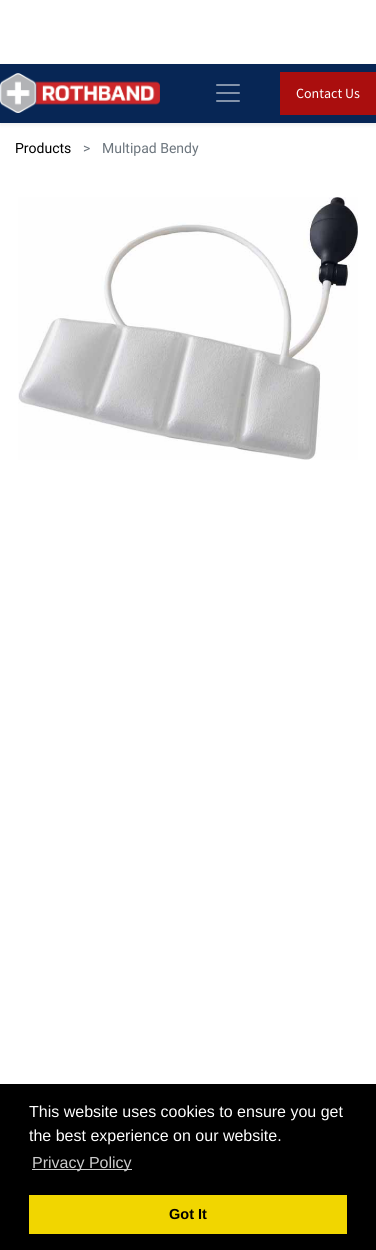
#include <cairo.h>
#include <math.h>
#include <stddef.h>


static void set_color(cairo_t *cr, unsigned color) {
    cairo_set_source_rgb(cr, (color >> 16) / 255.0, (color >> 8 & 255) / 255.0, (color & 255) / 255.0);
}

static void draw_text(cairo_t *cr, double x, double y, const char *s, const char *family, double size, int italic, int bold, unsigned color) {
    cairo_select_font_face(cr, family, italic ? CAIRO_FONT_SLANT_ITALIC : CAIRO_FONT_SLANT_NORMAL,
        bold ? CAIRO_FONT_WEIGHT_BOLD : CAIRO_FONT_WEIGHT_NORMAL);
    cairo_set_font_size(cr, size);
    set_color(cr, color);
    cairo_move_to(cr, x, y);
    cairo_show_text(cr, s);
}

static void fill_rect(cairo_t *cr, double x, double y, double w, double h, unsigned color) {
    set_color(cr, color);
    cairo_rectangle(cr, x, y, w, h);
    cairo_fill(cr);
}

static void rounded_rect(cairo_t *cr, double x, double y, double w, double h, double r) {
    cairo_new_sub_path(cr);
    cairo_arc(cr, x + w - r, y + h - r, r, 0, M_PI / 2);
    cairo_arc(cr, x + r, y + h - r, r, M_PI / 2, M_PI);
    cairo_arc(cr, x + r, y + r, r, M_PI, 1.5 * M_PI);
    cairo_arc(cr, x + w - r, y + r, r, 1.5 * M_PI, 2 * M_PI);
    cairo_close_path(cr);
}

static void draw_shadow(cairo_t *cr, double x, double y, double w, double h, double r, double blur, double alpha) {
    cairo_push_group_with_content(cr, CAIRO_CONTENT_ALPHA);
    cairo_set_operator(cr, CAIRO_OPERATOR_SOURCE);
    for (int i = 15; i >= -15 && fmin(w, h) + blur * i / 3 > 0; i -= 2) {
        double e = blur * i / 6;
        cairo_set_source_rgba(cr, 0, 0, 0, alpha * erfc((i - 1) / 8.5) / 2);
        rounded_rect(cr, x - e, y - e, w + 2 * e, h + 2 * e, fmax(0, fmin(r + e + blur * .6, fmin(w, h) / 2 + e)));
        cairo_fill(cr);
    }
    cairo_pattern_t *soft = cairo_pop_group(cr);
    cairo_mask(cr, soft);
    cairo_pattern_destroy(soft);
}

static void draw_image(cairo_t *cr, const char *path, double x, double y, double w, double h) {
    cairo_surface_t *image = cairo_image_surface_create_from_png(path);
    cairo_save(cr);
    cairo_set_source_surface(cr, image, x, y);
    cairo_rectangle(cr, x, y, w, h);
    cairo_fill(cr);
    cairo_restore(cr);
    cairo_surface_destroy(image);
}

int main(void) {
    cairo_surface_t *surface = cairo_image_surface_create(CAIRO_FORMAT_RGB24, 376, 1250);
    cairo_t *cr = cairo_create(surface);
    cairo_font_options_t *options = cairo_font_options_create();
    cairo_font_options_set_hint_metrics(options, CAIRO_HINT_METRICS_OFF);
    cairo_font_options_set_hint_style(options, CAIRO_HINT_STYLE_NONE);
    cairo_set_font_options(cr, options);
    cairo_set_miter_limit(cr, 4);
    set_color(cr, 0xFFFFFF);
    cairo_paint(cr);
    set_color(cr, 0x000000);
    draw_shadow(cr, 0, 66, 376, 59, 0, 2, 0.07);
    fill_rect(cr, 0, 64, 376, 59, 0x072655);
    draw_image(cr, "assets/img1.png", 0, 73, 160, 40);
    draw_image(cr, "assets/img2.png", 216, 84, 24, 18);
    fill_rect(cr, 280, 72, 96, 43, 0xAA0E0E);
    draw_text(cr, 296, 98, "Contact Us", "Source Sans Pro", 14, 0, 0, 0xFFFFFF);
    draw_text(cr, 15, 153, "Products", "Roboto", 14, 0, 0, 0x000000);
    draw_text(cr, 83, 153, ">", "Roboto", 14, 0, 0, 0x6C757D);
    draw_text(cr, 102, 153, "Multipad Bendy", "Roboto", 14, 0, 0, 0x6C757D);
    draw_image(cr, "assets/img3.png", 18, 197, 340, 263);
    fill_rect(cr, 0, 1084, 376, 166, 0x000000);
    draw_text(cr, 29, 1117, "This website uses cookies to ensure you get", "Liberation Sans", 16, 0, 0, 0xFFFFFF);
    draw_text(cr, 29, 1141, "the best experience on our website.", "Liberation Sans", 16, 0, 0, 0xFFFFFF);
    fill_rect(cr, 32, 1169, 100, 1, 0xCCCCCC);
    draw_text(cr, 32, 1168, "Privacy Policy", "Liberation Sans", 16, 0, 0, 0xCCCCCC);
    fill_rect(cr, 29, 1195, 318, 39, 0xF1D600);
    draw_text(cr, 169, 1219, "Got It", "Liberation Sans", 14.5, 0, 1, 0x000000);
    cairo_surface_write_to_png(surface, "output.png");
    cairo_font_options_destroy(options);
    cairo_destroy(cr);
    cairo_surface_destroy(surface);
    return 0;
}
